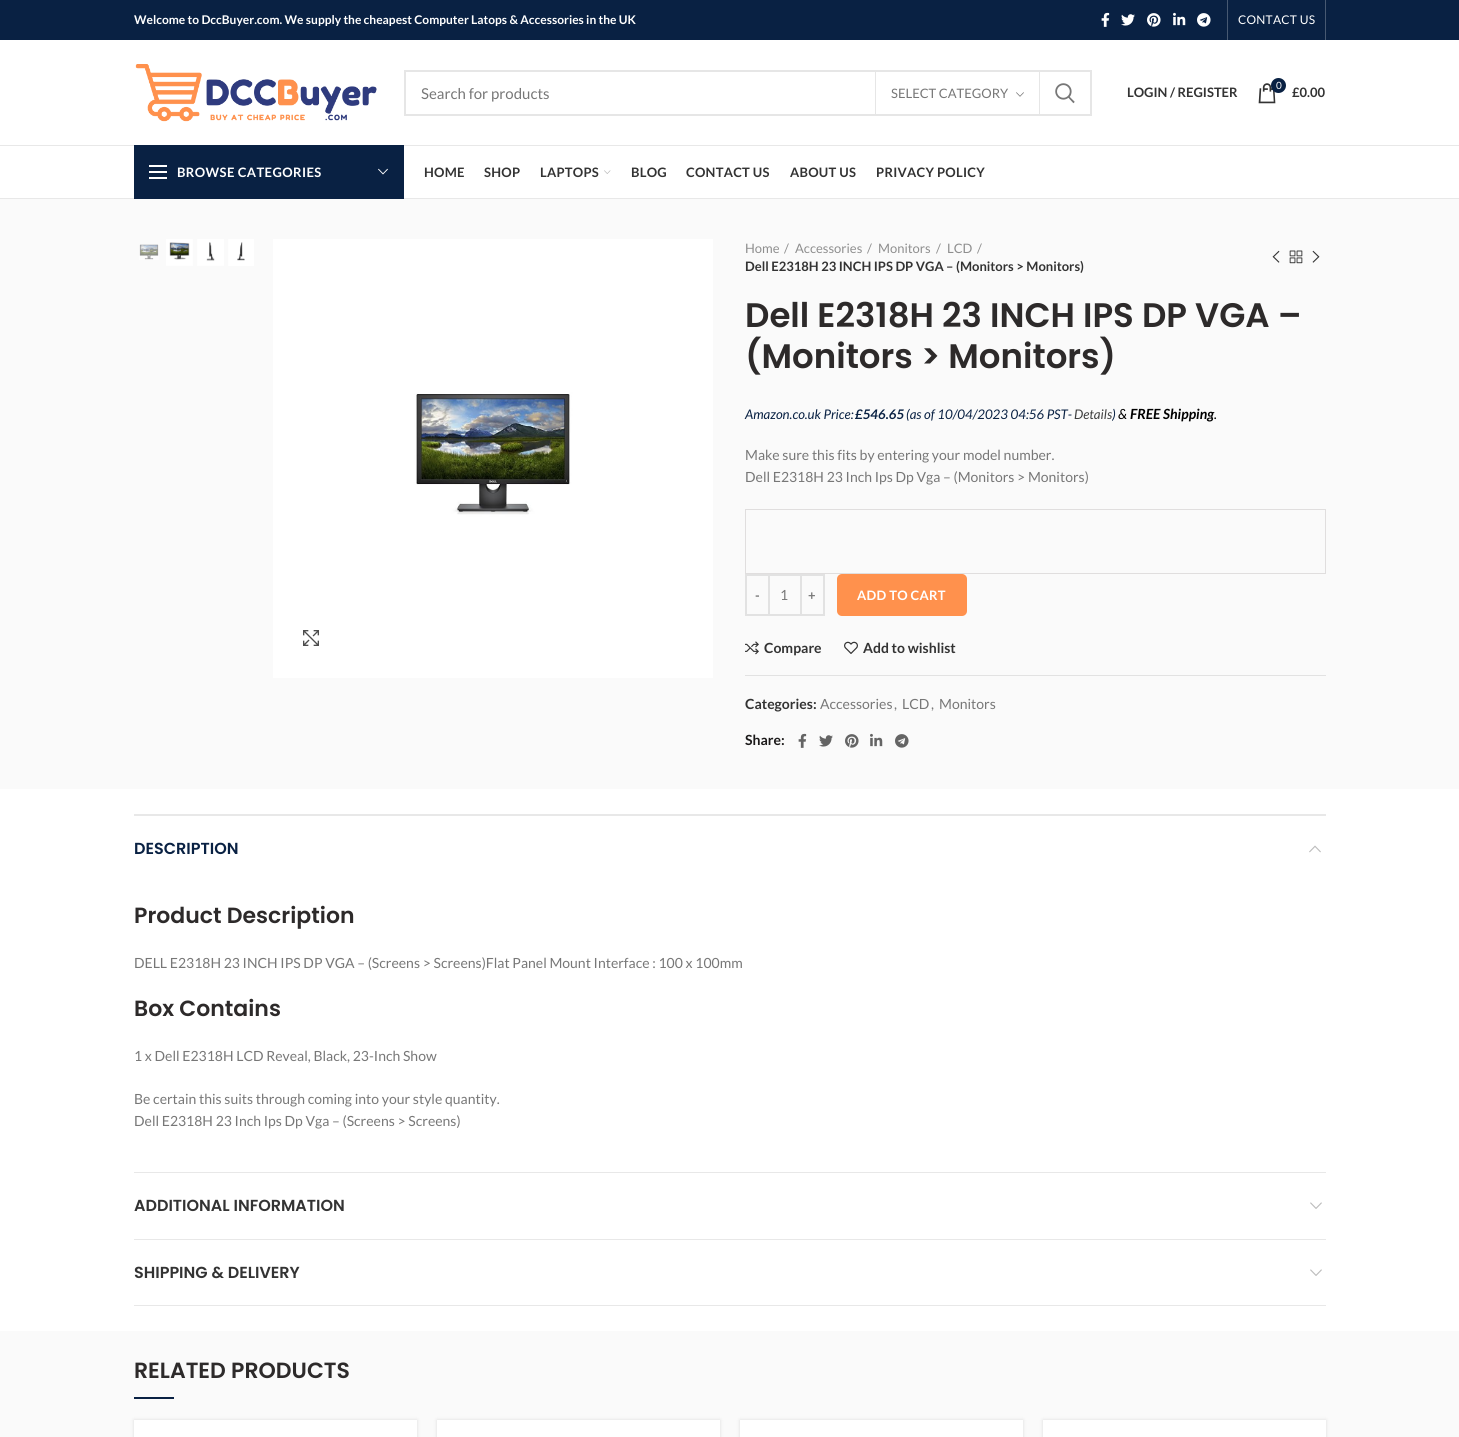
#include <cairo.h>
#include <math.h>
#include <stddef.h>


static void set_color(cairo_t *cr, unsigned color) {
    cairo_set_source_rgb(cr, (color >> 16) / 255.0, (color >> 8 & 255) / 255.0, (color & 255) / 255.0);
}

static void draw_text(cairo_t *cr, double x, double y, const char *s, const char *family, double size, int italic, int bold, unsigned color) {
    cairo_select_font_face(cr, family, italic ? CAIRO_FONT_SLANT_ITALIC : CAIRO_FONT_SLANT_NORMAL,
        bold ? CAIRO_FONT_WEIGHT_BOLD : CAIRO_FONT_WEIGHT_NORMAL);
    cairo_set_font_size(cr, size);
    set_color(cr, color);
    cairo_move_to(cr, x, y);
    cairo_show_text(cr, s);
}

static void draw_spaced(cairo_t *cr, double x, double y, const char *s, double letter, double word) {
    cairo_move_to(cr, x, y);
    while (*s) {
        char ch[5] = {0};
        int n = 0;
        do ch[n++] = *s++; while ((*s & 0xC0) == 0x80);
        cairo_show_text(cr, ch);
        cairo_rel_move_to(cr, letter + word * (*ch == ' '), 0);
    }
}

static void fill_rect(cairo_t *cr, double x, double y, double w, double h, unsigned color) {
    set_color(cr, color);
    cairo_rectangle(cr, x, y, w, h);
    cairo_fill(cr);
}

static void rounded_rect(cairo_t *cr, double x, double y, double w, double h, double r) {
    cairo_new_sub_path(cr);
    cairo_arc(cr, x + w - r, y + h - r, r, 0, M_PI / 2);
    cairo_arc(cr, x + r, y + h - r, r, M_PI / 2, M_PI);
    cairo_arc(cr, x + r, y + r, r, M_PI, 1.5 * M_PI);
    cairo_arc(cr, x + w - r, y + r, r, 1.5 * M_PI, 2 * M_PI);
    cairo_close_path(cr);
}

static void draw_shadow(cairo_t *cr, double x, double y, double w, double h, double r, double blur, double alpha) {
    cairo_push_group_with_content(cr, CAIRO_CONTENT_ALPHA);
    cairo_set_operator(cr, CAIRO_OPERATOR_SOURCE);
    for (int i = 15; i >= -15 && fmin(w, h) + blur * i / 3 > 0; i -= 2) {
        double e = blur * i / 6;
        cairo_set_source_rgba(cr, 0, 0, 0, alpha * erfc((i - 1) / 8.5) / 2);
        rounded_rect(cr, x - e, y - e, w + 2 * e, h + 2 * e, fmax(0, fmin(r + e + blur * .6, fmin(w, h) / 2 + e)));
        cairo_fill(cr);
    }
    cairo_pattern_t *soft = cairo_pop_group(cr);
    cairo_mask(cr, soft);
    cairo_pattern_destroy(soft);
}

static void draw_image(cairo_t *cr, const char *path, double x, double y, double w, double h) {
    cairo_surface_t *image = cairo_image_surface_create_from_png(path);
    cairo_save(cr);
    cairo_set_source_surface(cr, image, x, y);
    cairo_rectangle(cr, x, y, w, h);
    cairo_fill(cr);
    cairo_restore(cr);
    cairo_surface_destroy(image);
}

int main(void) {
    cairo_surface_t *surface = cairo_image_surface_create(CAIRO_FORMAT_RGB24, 1459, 1437);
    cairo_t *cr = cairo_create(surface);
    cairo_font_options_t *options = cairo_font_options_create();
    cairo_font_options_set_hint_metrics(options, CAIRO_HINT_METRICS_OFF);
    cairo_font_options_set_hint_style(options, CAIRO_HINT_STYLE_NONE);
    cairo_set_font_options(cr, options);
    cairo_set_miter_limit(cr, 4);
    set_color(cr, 0xFFFFFF);
    cairo_paint(cr);
    fill_rect(cr, 0, 0, 1459, 40, 0x092143);
    draw_text(cr, 134, 24, "Welcome to DccBuyer.com. We supply the cheapest Computer Latops & Accessories in the UK", "Lato", 12, 0, 1, 0xFFFFFF);
    draw_image(cr, "assets/img1.png", 1101, 12, 9, 15);
    draw_image(cr, "assets/img2.png", 1121, 14, 14, 12);
    draw_image(cr, "assets/img3.png", 1147, 13, 14, 14);
    draw_image(cr, "assets/img4.png", 1173, 12, 13, 14);
    draw_image(cr, "assets/img5.png", 1197, 13, 14, 14);
    fill_rect(cr, 1227, 0, 1, 40, 0x475972);
    cairo_select_font_face(cr, "Lato", CAIRO_FONT_SLANT_NORMAL, CAIRO_FONT_WEIGHT_NORMAL);
    set_color(cr, 0xFFFFFF);
    draw_spaced(cr, 1238, 24, "CONTACT US", 0.25, 0);
    fill_rect(cr, 1325, 0, 1, 40, 0x475972);
    fill_rect(cr, 0, 145, 1459, 1, 0xE8E8E8);
    draw_image(cr, "assets/img6.png", 135, 64, 242, 58);
    cairo_rectangle(cr, 405, 71, 686, 44);
    set_color(cr, 0xE6E6E6);
    cairo_stroke(cr);
    draw_text(cr, 421, 99, "Search for products", "Lato", 15, 0, 0, 0x777777);
    fill_rect(cr, 1039, 72, 1, 42, 0xE6E6E6);
    fill_rect(cr, 875, 72, 1, 42, 0xE6E6E6);
    draw_text(cr, 891, 98, "SELECT CATEGORY", "Lato", 13, 0, 0, 0x777777);
    draw_image(cr, "assets/img7.png", 1016, 92, 8, 5);
    draw_image(cr, "assets/img8.png", 1055, 83, 20, 21);
    draw_text(cr, 1127, 97, "LOGIN / REGISTER", "Lato", 13, 0, 1, 0x333333);
    draw_image(cr, "assets/img9.png", 1258, 83, 18, 21);
    set_color(cr, 0x092143);
    cairo_arc(cr, 1278.5, 85.5, 7.5, 0, 2 * M_PI);
    cairo_fill(cr);
    draw_text(cr, 1276, 89, "0", "Lato", 10, 0, 0, 0xFFFFFF);
    draw_text(cr, 1292, 97, "£0.00", "Lato", 13, 0, 1, 0x333333);
    fill_rect(cr, 0, 198, 1459, 1, 0xE8E8E8);
    fill_rect(cr, 134, 145, 270, 54, 0x092143);
    fill_rect(cr, 149, 171, 18, 2, 0xFFFFFF);
    fill_rect(cr, 149, 165, 18, 2, 0xFFFFFF);
    fill_rect(cr, 149, 177, 18, 2, 0xFFFFFF);
    draw_spaced(cr, 177, 177, "BROWSE CATEGORIES", 0.4, 0);
    draw_image(cr, "assets/img10.png", 378, 168, 10, 7);
    set_color(cr, 0x333333);
    draw_spaced(cr, 424, 177, "HOME", 0.25, 0);
    draw_spaced(cr, 484, 177, "SHOP", 0.25, 0);
    draw_spaced(cr, 540, 177, "LAPTOPS", 0.25, 0);
    draw_image(cr, "assets/img11.png", 604, 170, 7, 4);
    draw_spaced(cr, 631, 177, "BLOG", 0.25, 0);
    draw_spaced(cr, 686, 177, "CONTACT US", 0.25, 0);
    draw_spaced(cr, 790, 177, "ABOUT US", 0.25, 0);
    draw_spaced(cr, 876, 177, "PRIVACY POLICY", 0.25, 0);
    fill_rect(cr, 0, 199, 1459, 1238, 0xFAFAFA);
    draw_image(cr, "assets/img12.png", 139, 244, 20, 16);
    draw_image(cr, "assets/img13.png", 166, 239, 27, 27);
    draw_image(cr, "assets/img14.png", 197, 239, 27, 27);
    draw_image(cr, "assets/img15.png", 228, 239, 26, 27);
    draw_image(cr, "assets/img16.png", 273, 239, 440, 439);
    draw_image(cr, "assets/img17.png", 303, 630, 16, 16);
    draw_text(cr, 745, 253, "Home", "Lato", 13, 0, 0, 0x8E8E8E);
    draw_text(cr, 784, 253, "/", "Lato", 13, 0, 0, 0x8E8E8E);
    draw_text(cr, 795, 253, "Accessories", "Lato", 13, 0, 0, 0x8E8E8E);
    draw_text(cr, 867, 253, "/", "Lato", 13, 0, 0, 0x8E8E8E);
    draw_text(cr, 878, 253, "Monitors", "Lato", 13, 0, 0, 0x8E8E8E);
    draw_text(cr, 936, 253, "/", "Lato", 13, 0, 0, 0x8E8E8E);
    draw_text(cr, 947, 253, "LCD", "Lato", 13, 0, 0, 0x8E8E8E);
    draw_text(cr, 977, 253, "/", "Lato", 13, 0, 0, 0x8E8E8E);
    draw_text(cr, 745, 271, "Dell E2318H 23 INCH IPS DP VGA – (Monitors > Monitors)", "Lato", 13, 0, 1, 0x333333);
    draw_image(cr, "assets/img18.png", 1272, 250, 8, 13);
    draw_image(cr, "assets/img19.png", 1289, 250, 14, 14);
    draw_image(cr, "assets/img20.png", 1312, 250, 8, 13);
    draw_text(cr, 745, 327, "Dell E2318H 23 INCH IPS DP VGA –", "Poppins SemiBold", 34, 0, 0, 0x2D2A2A);
    draw_text(cr, 745, 368, "(Monitors > Monitors)", "Poppins SemiBold", 34, 0, 0, 0x2D2A2A);
    draw_text(cr, 745, 419, "Amazon.co.uk Price:", "Lato", 13.25, 1, 0, 0x092143);
    draw_text(cr, 855, 419, "£546.65", "Lato", 13.25, 1, 1, 0x092143);
    draw_text(cr, 906, 419, "(as of 10/04/2023 04:56 PST-", "Lato", 13.25, 1, 0, 0x092143);
    draw_text(cr, 1074, 419, "Details", "Lato", 13.25, 1, 0, 0x3F3F3F);
    draw_text(cr, 1112, 419, ")", "Lato", 13.25, 1, 0, 0x092143);
    draw_text(cr, 1118, 419, "&", "Lato", 14, 1, 0, 0x000000);
    draw_text(cr, 1130, 419, "FREE Shipping", "Lato", 14, 1, 1, 0x000000);
    draw_text(cr, 1214, 419, ".", "Lato", 14, 1, 0, 0x000000);
    draw_text(cr, 745, 460, "Make sure this fits by entering your model number.", "Lato", 14, 0, 0, 0x777777);
    draw_text(cr, 745, 482, "Dell E2318H 23 Inch Ips Dp Vga – (Monitors > Monitors)", "Lato", 14, 0, 0, 0x777777);
    cairo_rectangle(cr, 745.5, 509.5, 580, 64);
    set_color(cr, 0xE0DEDE);
    cairo_set_line_width(cr, 1);
    cairo_stroke(cr);
    cairo_rectangle(cr, 746, 575, 23, 40);
    set_color(cr, 0xE2E2E2);
    cairo_set_line_width(cr, 2);
    cairo_stroke(cr);
    cairo_select_font_face(cr, "Lato", CAIRO_FONT_SLANT_NORMAL, CAIRO_FONT_WEIGHT_BOLD);
    cairo_set_font_size(cr, 13);
    set_color(cr, 0x777777);
    draw_spaced(cr, 755, 600, "-", 0.25, 0);
    fill_rect(cr, 770, 574, 30, 2, 0xE2E2E2);
    fill_rect(cr, 770, 614, 30, 2, 0xE2E2E2);
    draw_text(cr, 780, 600, "1", "Lato", 14, 0, 0, 0x777777);
    cairo_rectangle(cr, 801, 575, 23, 40);
    set_color(cr, 0xE2E2E2);
    cairo_stroke(cr);
    cairo_select_font_face(cr, "Lato", CAIRO_FONT_SLANT_NORMAL, CAIRO_FONT_WEIGHT_BOLD);
    cairo_set_font_size(cr, 13);
    set_color(cr, 0x777777);
    draw_spaced(cr, 808, 600, "+", 0.25, 0);
    set_color(cr, 0xFF914D);
    rounded_rect(cr, 837, 574, 130, 42, 5);
    cairo_fill(cr);
    set_color(cr, 0xFFFFFF);
    draw_spaced(cr, 857, 600, "ADD TO CART", 0.25, 0);
    draw_image(cr, "assets/img21.png", 745, 641, 14, 14);
    draw_text(cr, 764, 653, "Compare", "Lato", 14, 0, 1, 0x333333);
    draw_image(cr, "assets/img22.png", 844, 641, 14, 13);
    draw_text(cr, 863, 653, "Add to wishlist", "Lato", 14, 0, 1, 0x333333);
    fill_rect(cr, 745, 675, 581, 1, 0xE2E2E2);
    draw_text(cr, 745, 709, "Categories:", "Lato", 14, 0, 1, 0x333333);
    draw_text(cr, 820, 709, "Accessories", "Lato", 14, 0, 0, 0x777777);
    draw_text(cr, 894, 709, ",", "Lato", 14, 0, 0, 0x777777);
    draw_text(cr, 902, 709, "LCD", "Lato", 14, 0, 0, 0x777777);
    draw_text(cr, 931, 709, ",", "Lato", 14, 0, 0, 0x777777);
    draw_text(cr, 939, 709, "Monitors", "Lato", 14, 0, 0, 0x777777);
    draw_text(cr, 745, 745, "Share:", "Lato", 14, 0, 1, 0x1B1919);
    draw_image(cr, "assets/img23.png", 798, 733, 9, 15);
    draw_image(cr, "assets/img24.png", 819, 735, 14, 12);
    draw_image(cr, "assets/img25.png", 845, 734, 14, 14);
    draw_image(cr, "assets/img26.png", 870, 733, 13, 14);
    draw_image(cr, "assets/img27.png", 895, 734, 14, 14);
    fill_rect(cr, 0, 789, 1459, 542, 0xFFFFFF);
    fill_rect(cr, 134, 814, 1192, 2, 0xE8E8E8);
    fill_rect(cr, 134, 1172, 1192, 1, 0xE8E8E8);
    draw_text(cr, 134, 854, "DESCRIPTION", "Poppins SemiBold", 16, 0, 0, 0x092143);
    draw_image(cr, "assets/img28.png", 1309, 845, 12, 8);
    draw_text(cr, 134, 923, "Product Description", "Poppins SemiBold", 22, 0, 0, 0x2D2A2A);
    draw_text(cr, 134, 968, "DELL E2318H 23 INCH IPS DP VGA – (Screens > Screens)Flat Panel Mount Interface : 100 x 100mm", "Lato", 14, 0, 0, 0x777777);
    draw_text(cr, 134, 1016, "Box Contains", "Poppins SemiBold", 22, 0, 0, 0x2D2A2A);
    draw_text(cr, 134, 1061, "1 x Dell E2318H LCD Reveal, Black, 23-Inch Show", "Lato", 14, 0, 0, 0x777777);
    draw_text(cr, 134, 1104, "Be certain this suits through coming into your style quantity.", "Lato", 14, 0, 0, 0x777777);
    draw_text(cr, 134, 1126, "Dell E2318H 23 Inch Ips Dp Vga – (Screens > Screens)", "Lato", 14, 0, 0, 0x777777);
    fill_rect(cr, 134, 1239, 1192, 1, 0xE8E8E8);
    draw_text(cr, 134, 1211, "ADDITIONAL INFORMATION", "Poppins SemiBold", 16, 0, 0, 0x333333);
    draw_image(cr, "assets/img29.png", 1310, 1202, 12, 7);
    fill_rect(cr, 134, 1305, 1192, 1, 0xE8E8E8);
    draw_text(cr, 134, 1278, "SHIPPING & DELIVERY", "Poppins SemiBold", 16, 0, 0, 0x333333);
    draw_image(cr, "assets/img29.png", 1310, 1269, 12, 7);
    draw_text(cr, 134, 1378, "RELATED PRODUCTS", "Poppins SemiBold", 22, 0, 0, 0x2D2A2A);
    fill_rect(cr, 134, 1397, 40, 2, 0x092143);
    fill_rect(cr, 134, 1420, 283, 17, 0xFFFFFF);
    cairo_save(cr);
    cairo_set_fill_rule(cr, CAIRO_FILL_RULE_EVEN_ODD);
    cairo_new_path(cr);
    cairo_move_to(cr, 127, 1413);
    cairo_line_to(cr, 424, 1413);
    cairo_line_to(cr, 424, 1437);
    cairo_line_to(cr, 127, 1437);
    cairo_close_path(cr);
    cairo_move_to(cr, 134, 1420);
    cairo_line_to(cr, 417, 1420);
    cairo_line_to(cr, 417, 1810);
    cairo_line_to(cr, 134, 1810);
    cairo_close_path(cr);
    cairo_clip(cr);
    set_color(cr, 0x000000);
    draw_shadow(cr, 134, 1420, 283, 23, 0, 2, 0.12);
    cairo_restore(cr);
    fill_rect(cr, 437, 1420, 283, 17, 0xFFFFFF);
    cairo_save(cr);
    cairo_set_fill_rule(cr, CAIRO_FILL_RULE_EVEN_ODD);
    cairo_new_path(cr);
    cairo_move_to(cr, 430, 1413);
    cairo_line_to(cr, 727, 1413);
    cairo_line_to(cr, 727, 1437);
    cairo_line_to(cr, 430, 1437);
    cairo_close_path(cr);
    cairo_move_to(cr, 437, 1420);
    cairo_line_to(cr, 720, 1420);
    cairo_line_to(cr, 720, 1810);
    cairo_line_to(cr, 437, 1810);
    cairo_close_path(cr);
    cairo_clip(cr);
    set_color(cr, 0x000000);
    draw_shadow(cr, 437, 1420, 283, 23, 0, 2, 0.12);
    cairo_restore(cr);
    fill_rect(cr, 740, 1420, 283, 17, 0xFFFFFF);
    cairo_save(cr);
    cairo_set_fill_rule(cr, CAIRO_FILL_RULE_EVEN_ODD);
    cairo_new_path(cr);
    cairo_move_to(cr, 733, 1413);
    cairo_line_to(cr, 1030, 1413);
    cairo_line_to(cr, 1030, 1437);
    cairo_line_to(cr, 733, 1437);
    cairo_close_path(cr);
    cairo_move_to(cr, 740, 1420);
    cairo_line_to(cr, 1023, 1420);
    cairo_line_to(cr, 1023, 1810);
    cairo_line_to(cr, 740, 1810);
    cairo_close_path(cr);
    cairo_clip(cr);
    set_color(cr, 0x000000);
    draw_shadow(cr, 740, 1420, 283, 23, 0, 2, 0.12);
    cairo_restore(cr);
    fill_rect(cr, 1043, 1420, 283, 17, 0xFFFFFF);
    cairo_save(cr);
    cairo_set_fill_rule(cr, CAIRO_FILL_RULE_EVEN_ODD);
    cairo_new_path(cr);
    cairo_move_to(cr, 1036, 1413);
    cairo_line_to(cr, 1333, 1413);
    cairo_line_to(cr, 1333, 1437);
    cairo_line_to(cr, 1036, 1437);
    cairo_close_path(cr);
    cairo_move_to(cr, 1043, 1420);
    cairo_line_to(cr, 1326, 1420);
    cairo_line_to(cr, 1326, 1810);
    cairo_line_to(cr, 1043, 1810);
    cairo_close_path(cr);
    cairo_clip(cr);
    set_color(cr, 0x000000);
    draw_shadow(cr, 1043, 1420, 283, 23, 0, 2, 0.12);
    cairo_restore(cr);
    cairo_surface_write_to_png(surface, "output.png");
    cairo_font_options_destroy(options);
    cairo_destroy(cr);
    cairo_surface_destroy(surface);
    return 0;
}
